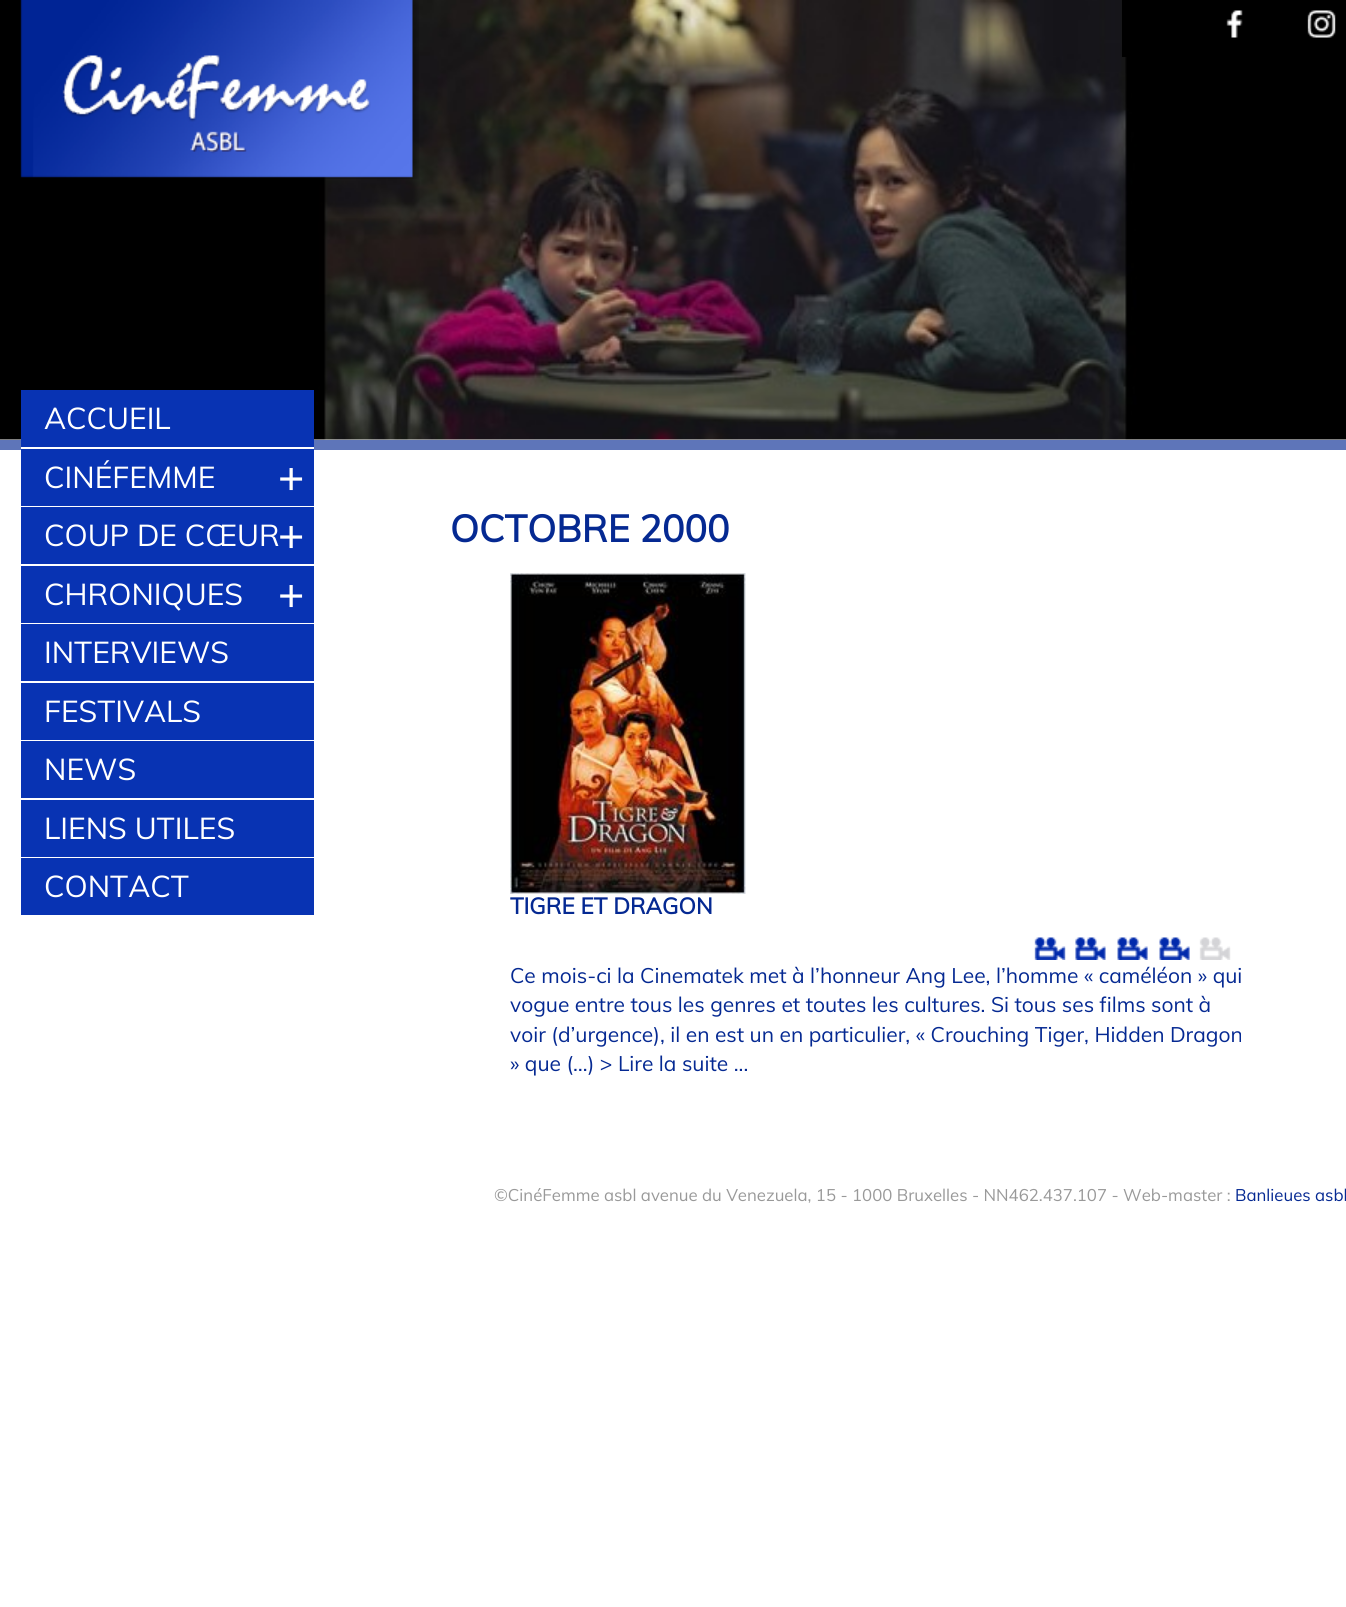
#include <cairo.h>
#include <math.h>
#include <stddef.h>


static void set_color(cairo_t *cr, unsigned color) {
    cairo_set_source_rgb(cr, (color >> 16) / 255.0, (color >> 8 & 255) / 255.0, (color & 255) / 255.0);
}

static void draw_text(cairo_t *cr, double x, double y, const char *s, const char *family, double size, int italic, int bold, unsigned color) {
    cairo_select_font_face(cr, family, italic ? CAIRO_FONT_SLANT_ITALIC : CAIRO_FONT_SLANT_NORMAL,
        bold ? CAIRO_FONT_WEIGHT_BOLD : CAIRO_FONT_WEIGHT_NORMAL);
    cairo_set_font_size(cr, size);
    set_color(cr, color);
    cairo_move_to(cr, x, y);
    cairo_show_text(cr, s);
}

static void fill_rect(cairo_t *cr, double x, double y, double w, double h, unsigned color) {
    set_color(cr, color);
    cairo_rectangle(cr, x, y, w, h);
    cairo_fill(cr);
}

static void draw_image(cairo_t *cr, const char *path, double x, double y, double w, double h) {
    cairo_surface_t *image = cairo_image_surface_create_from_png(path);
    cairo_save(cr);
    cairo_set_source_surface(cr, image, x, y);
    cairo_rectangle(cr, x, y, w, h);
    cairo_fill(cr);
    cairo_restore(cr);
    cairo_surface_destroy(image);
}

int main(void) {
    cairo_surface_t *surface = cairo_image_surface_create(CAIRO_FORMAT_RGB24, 1346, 1607);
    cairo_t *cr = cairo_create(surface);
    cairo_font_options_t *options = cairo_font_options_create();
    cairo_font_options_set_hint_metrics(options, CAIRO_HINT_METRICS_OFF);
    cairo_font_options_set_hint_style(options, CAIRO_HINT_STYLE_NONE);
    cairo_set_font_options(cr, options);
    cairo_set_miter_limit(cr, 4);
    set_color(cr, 0xFFFFFF);
    cairo_paint(cr);
    draw_image(cr, "assets/img1.png", 0, 0, 1346, 440);
    fill_rect(cr, 0, 440, 1346, 10, 0x5E75B9);
    draw_image(cr, "assets/img2.png", 20, 0, 399, 179);
    fill_rect(cr, 1122, 0, 5, 57, 0x000000);
    draw_image(cr, "assets/img3.png", 1226, 10, 17, 28);
    draw_image(cr, "assets/img4.png", 1307, 10, 29, 28);
    fill_rect(cr, 21, 390, 293, 57, 0x0833B3);
    fill_rect(cr, 21, 447, 293, 2, 0xFFFFFF);
    draw_text(cr, 44, 429, "ACCUEIL", "Muli", 30, 0, 0, 0xFFFFFF);
    fill_rect(cr, 21, 449, 293, 57, 0x0833B3);
    draw_text(cr, 44, 488, "CINÉFEMME", "Muli", 30, 0, 0, 0xFFFFFF);
    draw_text(cr, 278, 494, "+", "Liberation Sans", 45, 0, 0, 0xFFFFFF);
    fill_rect(cr, 21, 507, 293, 57, 0x0833B3);
    draw_text(cr, 44, 546, "COUP DE CŒUR", "Muli", 30, 0, 0, 0xFFFFFF);
    draw_text(cr, 278, 552, "+", "Liberation Sans", 45, 0, 0, 0xFFFFFF);
    fill_rect(cr, 21, 566, 293, 57, 0x0833B3);
    draw_text(cr, 44, 605, "CHRONIQUES", "Muli", 30, 0, 0, 0xFFFFFF);
    draw_text(cr, 278, 611, "+", "Liberation Sans", 45, 0, 0, 0xFFFFFF);
    fill_rect(cr, 21, 624, 293, 57, 0x0833B3);
    draw_text(cr, 44, 663, "INTERVIEWS", "Muli", 30, 0, 0, 0xFFFFFF);
    fill_rect(cr, 21, 683, 293, 57, 0x0833B3);
    draw_text(cr, 44, 722, "FESTIVALS", "Muli", 30, 0, 0, 0xFFFFFF);
    fill_rect(cr, 21, 741, 293, 57, 0x0833B3);
    draw_text(cr, 44, 780, "NEWS", "Muli", 30, 0, 0, 0xFFFFFF);
    fill_rect(cr, 21, 800, 293, 57, 0x0833B3);
    draw_text(cr, 44, 839, "LIENS UTILES", "Muli", 30, 0, 0, 0xFFFFFF);
    fill_rect(cr, 21, 858, 293, 57, 0x0833B3);
    draw_text(cr, 44, 897, "CONTACT", "Muli", 30, 0, 0, 0xFFFFFF);
    draw_text(cr, 450, 542, "OCTOBRE 2000", "Muli", 37.5, 0, 1, 0x052992);
    draw_image(cr, "assets/img5.png", 510, 573, 236, 321);
    draw_text(cr, 510, 914, "TIGRE ET DRAGON", "Muli", 22.5, 0, 1, 0x052992);
    draw_image(cr, "assets/img6.png", 1034, 937, 32, 23);
    draw_image(cr, "assets/img7.png", 1075, 937, 31, 23);
    draw_image(cr, "assets/img8.png", 1117, 937, 31, 23);
    draw_image(cr, "assets/img8.png", 1159, 937, 31, 23);
    draw_image(cr, "assets/img9.png", 1199, 937, 32, 23);
    draw_text(cr, 510, 983, "Ce mois-ci la Cinematek met à l’honneur Ang Lee, l’homme « caméléon » qui", "Muli", 21, 0, 0, 0x052992);
    draw_text(cr, 510, 1012, "vogue entre tous les genres et toutes les cultures. Si tous ses films sont à", "Muli", 21, 0, 0, 0x052992);
    draw_text(cr, 510, 1042, "voir (d’urgence), il en est un en particulier, « Crouching Tiger, Hidden Dragon", "Muli", 21, 0, 0, 0x052992);
    draw_text(cr, 510, 1071, "» que (…) > Lire la suite ...", "Muli", 21, 0, 0, 0x052992);
    draw_text(cr, 494, 1201, "©CinéFemme asbl avenue du Venezuela, 15 - 1000 Bruxelles - NN462.437.107 - Web-master :", "Muli", 16.8, 0, 0, 0x999999);
    draw_text(cr, 1235, 1201, "Banlieues asbl", "Muli", 16.8, 0, 0, 0x052992);
    cairo_surface_write_to_png(surface, "output.png");
    cairo_font_options_destroy(options);
    cairo_destroy(cr);
    cairo_surface_destroy(surface);
    return 0;
}
